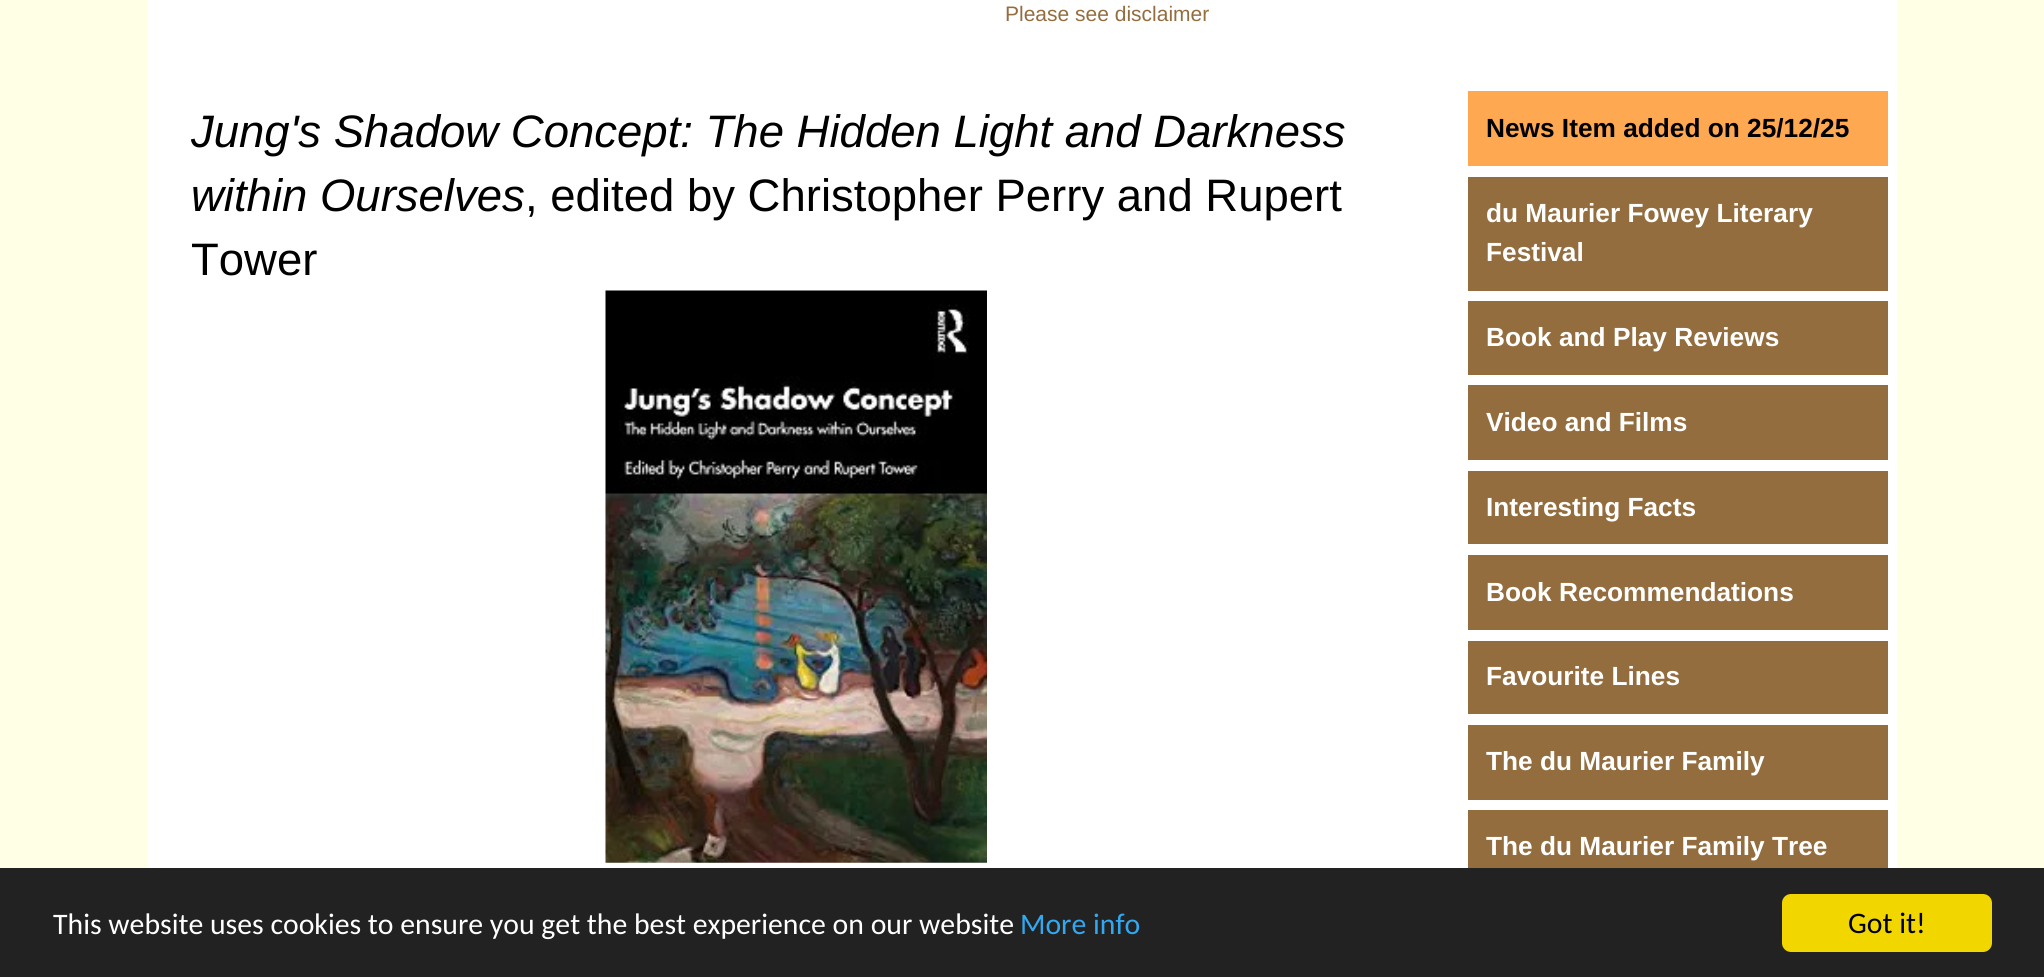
#include <cairo.h>
#include <math.h>
#include <stddef.h>


static void set_color(cairo_t *cr, unsigned color) {
    cairo_set_source_rgb(cr, (color >> 16) / 255.0, (color >> 8 & 255) / 255.0, (color & 255) / 255.0);
}

static void draw_text(cairo_t *cr, double x, double y, const char *s, const char *family, double size, int italic, int bold, unsigned color) {
    cairo_select_font_face(cr, family, italic ? CAIRO_FONT_SLANT_ITALIC : CAIRO_FONT_SLANT_NORMAL,
        bold ? CAIRO_FONT_WEIGHT_BOLD : CAIRO_FONT_WEIGHT_NORMAL);
    cairo_set_font_size(cr, size);
    set_color(cr, color);
    cairo_move_to(cr, x, y);
    cairo_show_text(cr, s);
}

static void fill_rect(cairo_t *cr, double x, double y, double w, double h, unsigned color) {
    set_color(cr, color);
    cairo_rectangle(cr, x, y, w, h);
    cairo_fill(cr);
}

static void rounded_rect(cairo_t *cr, double x, double y, double w, double h, double r) {
    cairo_new_sub_path(cr);
    cairo_arc(cr, x + w - r, y + h - r, r, 0, M_PI / 2);
    cairo_arc(cr, x + r, y + h - r, r, M_PI / 2, M_PI);
    cairo_arc(cr, x + r, y + r, r, M_PI, 1.5 * M_PI);
    cairo_arc(cr, x + w - r, y + r, r, 1.5 * M_PI, 2 * M_PI);
    cairo_close_path(cr);
}

static void draw_image(cairo_t *cr, const char *path, double x, double y, double w, double h) {
    cairo_surface_t *image = cairo_image_surface_create_from_png(path);
    cairo_save(cr);
    cairo_set_source_surface(cr, image, x, y);
    cairo_rectangle(cr, x, y, w, h);
    cairo_fill(cr);
    cairo_restore(cr);
    cairo_surface_destroy(image);
}

int main(void) {
    cairo_surface_t *surface = cairo_image_surface_create(CAIRO_FORMAT_RGB24, 2044, 977);
    cairo_t *cr = cairo_create(surface);
    cairo_font_options_t *options = cairo_font_options_create();
    cairo_font_options_set_hint_metrics(options, CAIRO_HINT_METRICS_OFF);
    cairo_font_options_set_hint_style(options, CAIRO_HINT_STYLE_NONE);
    cairo_set_font_options(cr, options);
    cairo_set_miter_limit(cr, 4);
    set_color(cr, 0xFFFFE6);
    cairo_paint(cr);
    fill_rect(cr, 147, 0, 1750, 868, 0xFFFFFF);
    draw_text(cr, 1005, 21, "Please see disclaimer", "Liberation Sans", 21, 0, 0, 0x936D3E);
    draw_text(cr, 191, 147, "Jung's Shadow Concept: The Hidden Light and Darkness", "Liberation Sans", 45.5, 1, 0, 0x000000);
    draw_text(cr, 191, 211, "within Ourselves", "Liberation Sans", 45.5, 1, 0, 0x000000);
    draw_text(cr, 525, 211, ", edited by Christopher Perry and Rupert", "Liberation Sans", 45.5, 0, 0, 0x000000);
    draw_text(cr, 191, 275, "Tower", "Liberation Sans", 45.5, 0, 0, 0x000000);
    draw_image(cr, "assets/img1.png", 605, 290, 382, 573);
    fill_rect(cr, 1468, 91, 420, 75, 0xFFA852);
    draw_text(cr, 1486, 137, "News Item added on 25/12/25", "Liberation Sans", 26.25, 0, 1, 0x000000);
    fill_rect(cr, 1468, 177, 420, 114, 0x936D3E);
    draw_text(cr, 1486, 222, "du Maurier Fowey Literary", "Liberation Sans", 26.25, 0, 1, 0xFFFFFF);
    draw_text(cr, 1486, 261, "Festival", "Liberation Sans", 26.25, 0, 1, 0xFFFFFF);
    fill_rect(cr, 1468, 301, 420, 74, 0x936D3E);
    draw_text(cr, 1486, 346, "Book and Play Reviews", "Liberation Sans", 26.25, 0, 1, 0xFFFFFF);
    fill_rect(cr, 1468, 385, 420, 75, 0x936D3E);
    draw_text(cr, 1486, 431, "Video and Films", "Liberation Sans", 26.25, 0, 1, 0xFFFFFF);
    fill_rect(cr, 1468, 471, 420, 73, 0x936D3E);
    draw_text(cr, 1486, 516, "Interesting Facts", "Liberation Sans", 26.25, 0, 1, 0xFFFFFF);
    fill_rect(cr, 1468, 555, 420, 75, 0x936D3E);
    draw_text(cr, 1486, 601, "Book Recommendations", "Liberation Sans", 26.25, 0, 1, 0xFFFFFF);
    fill_rect(cr, 1468, 641, 420, 73, 0x936D3E);
    draw_text(cr, 1486, 685, "Favourite Lines", "Liberation Sans", 26.25, 0, 1, 0xFFFFFF);
    fill_rect(cr, 1468, 725, 420, 75, 0x936D3E);
    draw_text(cr, 1486, 770, "The du Maurier Family", "Liberation Sans", 26.25, 0, 1, 0xFFFFFF);
    fill_rect(cr, 1468, 810, 420, 58, 0x936D3E);
    draw_text(cr, 1486, 855, "The du Maurier Family Tree", "Liberation Sans", 26.25, 0, 1, 0xFFFFFF);
    fill_rect(cr, 0, 868, 2044, 109, 0x222222);
    draw_text(cr, 53, 934, "This website uses cookies to ensure you get the best experience on our website", "Carlito", 29.75, 0, 0, 0xFFFFFF);
    draw_text(cr, 1020, 934, "More info", "Carlito", 29.75, 0, 0, 0x31A8F0);
    set_color(cr, 0xF1D600);
    rounded_rect(cr, 1782, 894, 210, 58, 9);
    cairo_fill(cr);
    draw_text(cr, 1848, 933, "Got it!", "Carlito", 29.75, 0, 0, 0x000000);
    cairo_surface_write_to_png(surface, "output.png");
    cairo_font_options_destroy(options);
    cairo_destroy(cr);
    cairo_surface_destroy(surface);
    return 0;
}
